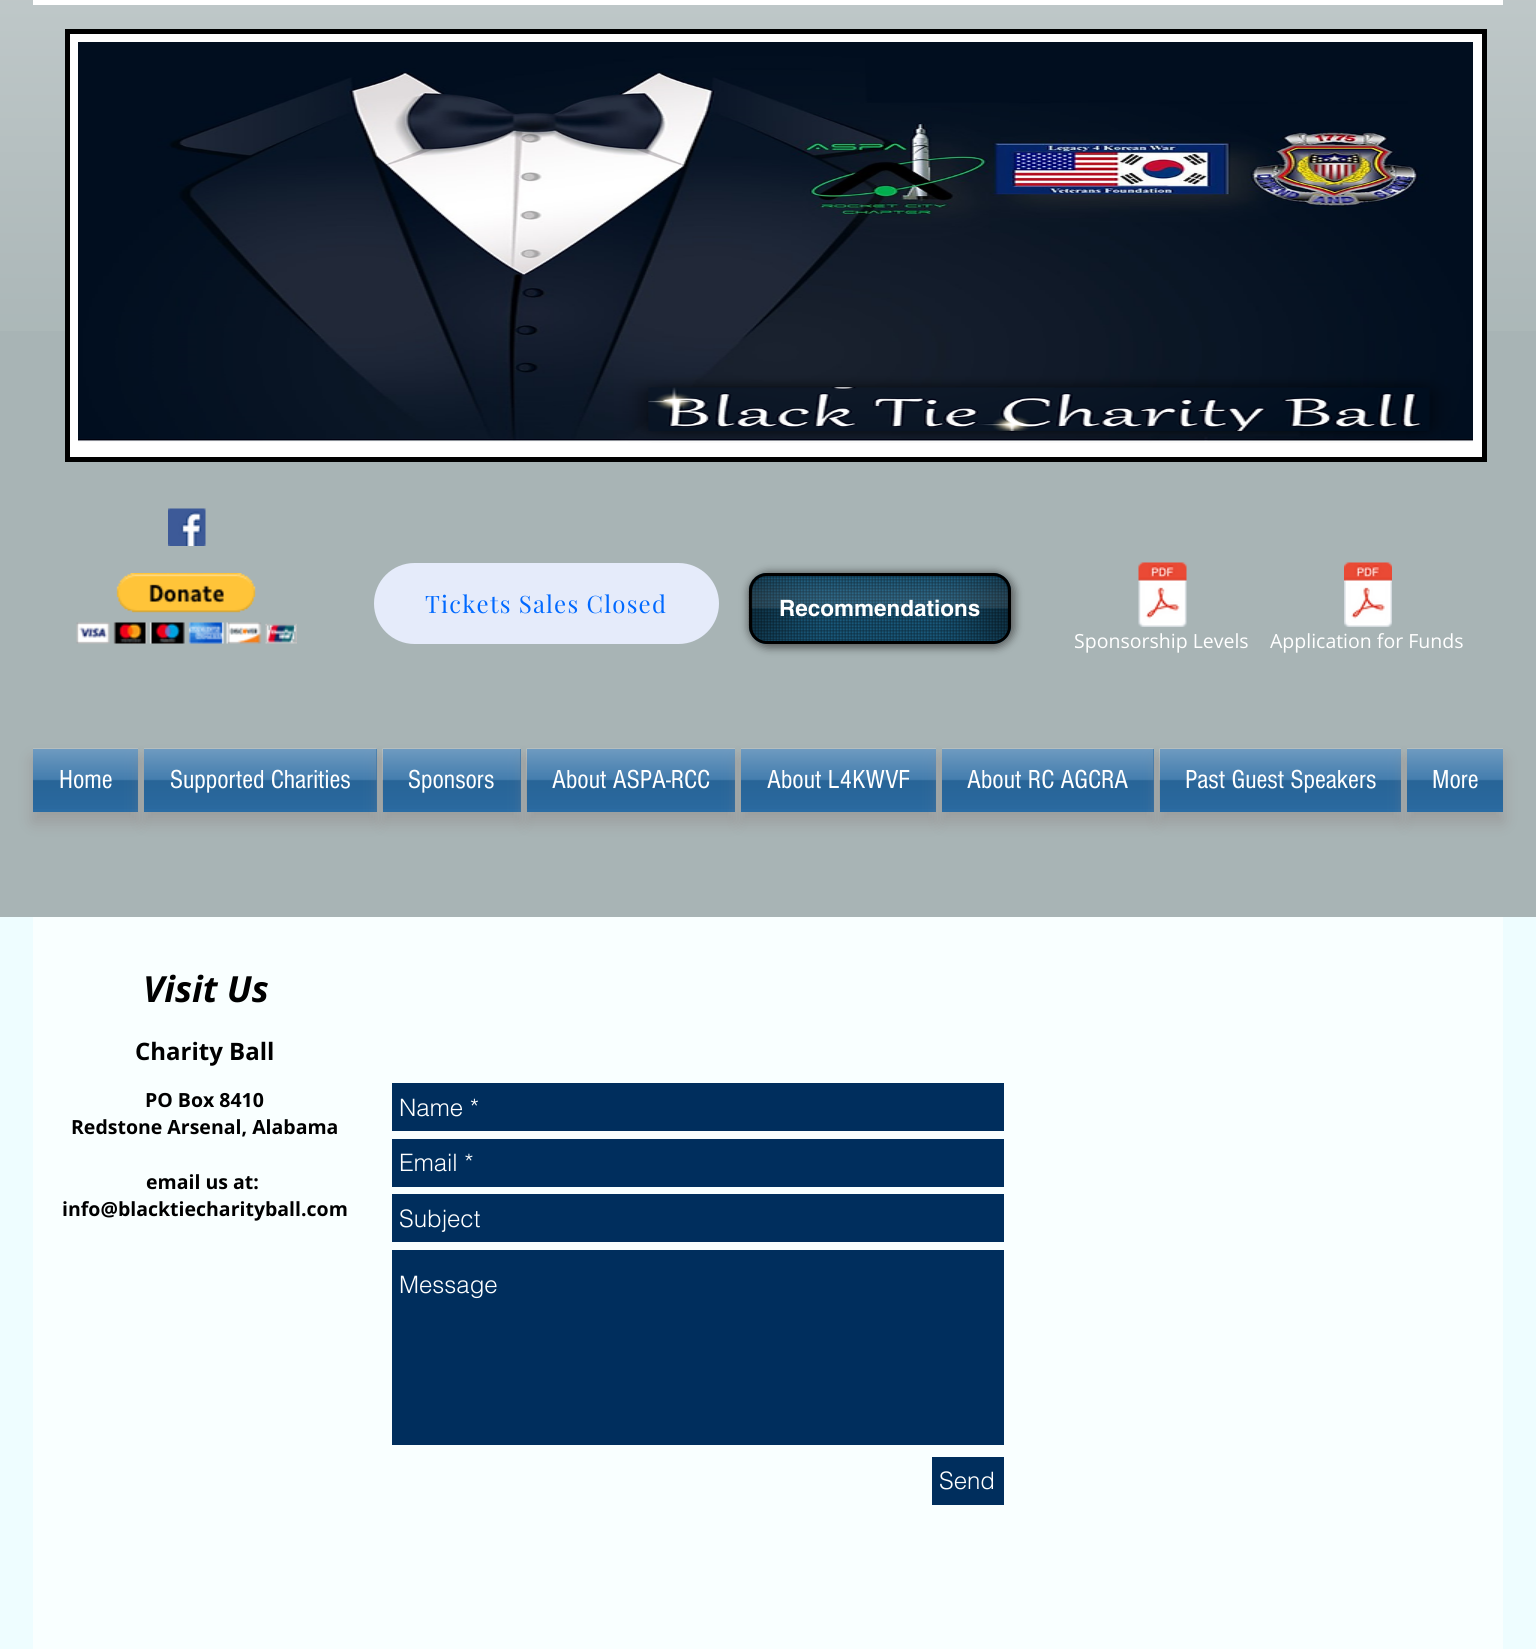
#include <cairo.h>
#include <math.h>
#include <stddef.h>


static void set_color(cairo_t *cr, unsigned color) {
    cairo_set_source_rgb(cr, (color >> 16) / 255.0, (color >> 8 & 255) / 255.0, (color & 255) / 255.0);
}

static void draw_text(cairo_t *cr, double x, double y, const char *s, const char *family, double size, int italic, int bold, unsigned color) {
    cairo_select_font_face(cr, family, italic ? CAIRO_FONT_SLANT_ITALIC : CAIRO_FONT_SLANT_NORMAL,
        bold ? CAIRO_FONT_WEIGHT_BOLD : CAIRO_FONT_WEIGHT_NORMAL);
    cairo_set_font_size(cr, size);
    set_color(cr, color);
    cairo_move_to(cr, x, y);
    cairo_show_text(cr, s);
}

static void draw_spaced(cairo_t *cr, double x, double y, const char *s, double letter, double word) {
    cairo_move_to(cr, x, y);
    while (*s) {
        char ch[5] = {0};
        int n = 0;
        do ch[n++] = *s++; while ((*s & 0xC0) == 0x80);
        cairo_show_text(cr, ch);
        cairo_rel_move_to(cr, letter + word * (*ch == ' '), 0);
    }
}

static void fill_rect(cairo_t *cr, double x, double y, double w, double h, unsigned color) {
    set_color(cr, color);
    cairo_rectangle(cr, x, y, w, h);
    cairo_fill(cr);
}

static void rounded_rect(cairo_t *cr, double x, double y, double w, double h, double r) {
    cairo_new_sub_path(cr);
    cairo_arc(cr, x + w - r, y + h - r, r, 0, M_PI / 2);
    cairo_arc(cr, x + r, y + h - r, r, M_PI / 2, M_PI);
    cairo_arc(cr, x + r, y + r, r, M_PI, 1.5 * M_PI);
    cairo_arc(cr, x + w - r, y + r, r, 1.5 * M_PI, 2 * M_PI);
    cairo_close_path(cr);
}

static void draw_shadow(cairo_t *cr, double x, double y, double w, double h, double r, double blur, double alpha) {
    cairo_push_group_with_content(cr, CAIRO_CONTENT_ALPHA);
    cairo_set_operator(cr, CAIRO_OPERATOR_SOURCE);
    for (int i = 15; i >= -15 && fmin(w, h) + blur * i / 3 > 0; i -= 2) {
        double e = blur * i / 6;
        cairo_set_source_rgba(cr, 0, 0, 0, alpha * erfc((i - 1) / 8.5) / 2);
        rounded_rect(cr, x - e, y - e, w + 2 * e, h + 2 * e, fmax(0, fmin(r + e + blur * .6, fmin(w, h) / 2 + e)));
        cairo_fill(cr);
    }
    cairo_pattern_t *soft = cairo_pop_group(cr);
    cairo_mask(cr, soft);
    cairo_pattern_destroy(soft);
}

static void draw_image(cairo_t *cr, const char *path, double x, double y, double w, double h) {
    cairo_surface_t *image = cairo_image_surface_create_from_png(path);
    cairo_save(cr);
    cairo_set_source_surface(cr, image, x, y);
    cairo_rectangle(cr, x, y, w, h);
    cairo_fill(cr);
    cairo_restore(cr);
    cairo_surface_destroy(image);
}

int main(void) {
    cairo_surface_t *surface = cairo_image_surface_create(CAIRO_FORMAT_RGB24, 1536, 1649);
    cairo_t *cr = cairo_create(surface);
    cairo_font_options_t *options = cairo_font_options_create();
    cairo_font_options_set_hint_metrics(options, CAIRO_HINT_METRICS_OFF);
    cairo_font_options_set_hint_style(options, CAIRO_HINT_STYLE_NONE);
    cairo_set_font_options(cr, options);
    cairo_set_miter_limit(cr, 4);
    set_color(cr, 0xEEFDFF);
    cairo_paint(cr);
    fill_rect(cr, 0, 0, 1536, 917, 0xA8B4B5);
    draw_image(cr, "assets/img1.png", 0, 0, 1536, 331);
    fill_rect(cr, 33, 0, 1470, 5, 0xFFFFFF);
    cairo_rectangle(cr, 67.5, 31.5, 1417, 428);
    cairo_fill_preserve(cr);
    set_color(cr, 0x000000);
    cairo_set_line_width(cr, 5);
    cairo_stroke(cr);
    draw_image(cr, "assets/img2.png", 78, 42, 1395, 401);
    draw_image(cr, "assets/img3.png", 168, 508, 38, 38);
    draw_image(cr, "assets/img4.png", 76, 573, 221, 71);
    set_color(cr, 0xE5EBFA);
    rounded_rect(cr, 374, 563, 345, 81, 40.5);
    cairo_fill(cr);
    cairo_select_font_face(cr, "Playfair Display", CAIRO_FONT_SLANT_NORMAL, CAIRO_FONT_WEIGHT_NORMAL);
    cairo_set_font_size(cr, 24);
    set_color(cr, 0x0069FF);
    draw_spaced(cr, 425, 613, "Tickets Sales Closed", 1.2, 0);
    set_color(cr, 0xFFFFFF);
    draw_shadow(cr, 750, 575, 263, 70, 18, 2, 0.3);
    set_color(cr, 0x000000);
    draw_shadow(cr, 749, 573, 265, 74, 20, 4.5, 0.6);
    set_color(cr, 0x1C638A);
    rounded_rect(cr, 749, 573, 262, 71, 18);
    cairo_fill(cr);
    draw_image(cr, "assets/img5.png", 748, 573, 263, 71);
    rounded_rect(cr, 750.5, 574.5, 259, 68, 16.5);
    set_color(cr, 0x000000);
    cairo_set_line_width(cr, 3);
    cairo_stroke(cr);
    draw_image(cr, "assets/img6.png", 752, 576, 65, 65);
    draw_image(cr, "assets/img7.png", 942, 576, 66, 65);
    draw_text(cr, 779, 616, "Recommendations", "helvetica", 22.5, 0, 1, 0xFFFFFF);
    draw_image(cr, "assets/img8.png", 751, 578, 257, 31);
    draw_image(cr, "assets/img9.png", 1138, 562, 49, 65);
    draw_text(cr, 1074, 648, "Sponsorship Levels", "Open Sans", 19.5, 0, 0, 0xFFFFFF);
    draw_image(cr, "assets/img10.png", 1344, 562, 48, 65);
    draw_text(cr, 1270, 648, "Application for Funds", "Open Sans", 19.5, 0, 0, 0xFFFFFF);
    set_color(cr, 0x918D8D);
    draw_shadow(cr, 33, 759, 105, 63, 0, 8, 0.6);
    fill_rect(cr, 33, 749, 105, 63, 0x2B6CA3);
    draw_image(cr, "assets/img11.png", 33, 748, 105, 61);
    draw_text(cr, 59, 788, "Home", "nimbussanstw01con", 27, 0, 0, 0xFFFFFF);
    set_color(cr, 0x918D8D);
    draw_shadow(cr, 144, 759, 233, 63, 0, 8, 0.6);
    fill_rect(cr, 144, 749, 233, 63, 0x2B6CA3);
    draw_image(cr, "assets/img12.png", 144, 748, 233, 61);
    draw_text(cr, 170, 788, "Supported Charities", "nimbussanstw01con", 27, 0, 0, 0xFFFFFF);
    set_color(cr, 0x918D8D);
    draw_shadow(cr, 383, 759, 138, 63, 0, 8, 0.6);
    fill_rect(cr, 383, 749, 138, 63, 0x2B6CA3);
    draw_image(cr, "assets/img13.png", 382, 748, 139, 61);
    draw_text(cr, 408, 788, "Sponsors", "nimbussanstw01con", 27, 0, 0, 0xFFFFFF);
    set_color(cr, 0x918D8D);
    draw_shadow(cr, 527, 759, 208, 63, 0, 8, 0.6);
    fill_rect(cr, 527, 749, 208, 63, 0x2B6CA3);
    draw_image(cr, "assets/img14.png", 526, 748, 209, 61);
    draw_text(cr, 552, 788, "About ASPA-RCC", "nimbussanstw01con", 27, 0, 0, 0xFFFFFF);
    set_color(cr, 0x918D8D);
    draw_shadow(cr, 741, 759, 195, 63, 0, 8, 0.6);
    fill_rect(cr, 741, 749, 195, 63, 0x2B6CA3);
    draw_image(cr, "assets/img15.png", 741, 748, 195, 61);
    draw_text(cr, 767, 788, "About L4KWVF", "nimbussanstw01con", 27, 0, 0, 0xFFFFFF);
    set_color(cr, 0x918D8D);
    draw_shadow(cr, 942, 759, 212, 63, 0, 8, 0.6);
    fill_rect(cr, 942, 749, 212, 63, 0x2B6CA3);
    draw_image(cr, "assets/img16.png", 942, 748, 212, 61);
    draw_text(cr, 967, 788, "About RC AGCRA", "nimbussanstw01con", 27, 0, 0, 0xFFFFFF);
    set_color(cr, 0x918D8D);
    draw_shadow(cr, 1160, 759, 241, 63, 0, 8, 0.6);
    fill_rect(cr, 1160, 749, 241, 63, 0x2B6CA3);
    draw_image(cr, "assets/img17.png", 1159, 748, 242, 61);
    draw_text(cr, 1185, 788, "Past Guest Speakers", "nimbussanstw01con", 27, 0, 0, 0xFFFFFF);
    set_color(cr, 0x918D8D);
    draw_shadow(cr, 1407, 759, 96, 63, 0, 8, 0.6);
    fill_rect(cr, 1407, 749, 96, 63, 0x2B6CA3);
    draw_image(cr, "assets/img18.png", 1407, 748, 96, 61);
    draw_text(cr, 1432, 788, "More", "nimbussanstw01con", 27, 0, 0, 0xFFFFFF);
    fill_rect(cr, 33, 917, 1470, 732, 0xF9FFFF);
    draw_text(cr, 143, 1002, "Visit Us", "Open Sans", 36, 1, 1, 0x000000);
    draw_text(cr, 135, 1060, "Charity Ball", "Open Sans", 24, 0, 1, 0x000000);
    draw_text(cr, 145, 1107, "PO Box 8410", "Open Sans", 19.5, 0, 1, 0x000000);
    draw_text(cr, 71, 1134, "Redstone Arsenal, Alabama", "Open Sans", 19.5, 0, 1, 0x000000);
    draw_text(cr, 146, 1189, "email us at:", "Open Sans", 19.5, 0, 1, 0x000000);
    draw_text(cr, 62, 1216, "info@blacktiecharityball.com", "Open Sans", 19.5, 0, 1, 0x000000);
    fill_rect(cr, 392, 1083, 612, 48, 0x002E5D);
    draw_text(cr, 399, 1116, "Name *", "helvetica Light", 24, 0, 0, 0xFFFFFF);
    fill_rect(cr, 392, 1139, 612, 48, 0x002E5D);
    draw_text(cr, 399, 1171, "Email *", "helvetica Light", 24, 0, 0, 0xFFFFFF);
    fill_rect(cr, 392, 1194, 612, 48, 0x002E5D);
    draw_text(cr, 399, 1227, "Subject", "helvetica Light", 24, 0, 0, 0xFFFFFF);
    fill_rect(cr, 392, 1250, 612, 195, 0x002E5D);
    draw_text(cr, 399, 1293, "Message", "helvetica Light", 24, 0, 0, 0xFFFFFF);
    fill_rect(cr, 932, 1457, 72, 48, 0x002E5D);
    draw_text(cr, 939, 1489, "Send", "helvetica Light", 24, 0, 0, 0xFFFFFF);
    cairo_surface_write_to_png(surface, "output.png");
    cairo_font_options_destroy(options);
    cairo_destroy(cr);
    cairo_surface_destroy(surface);
    return 0;
}
